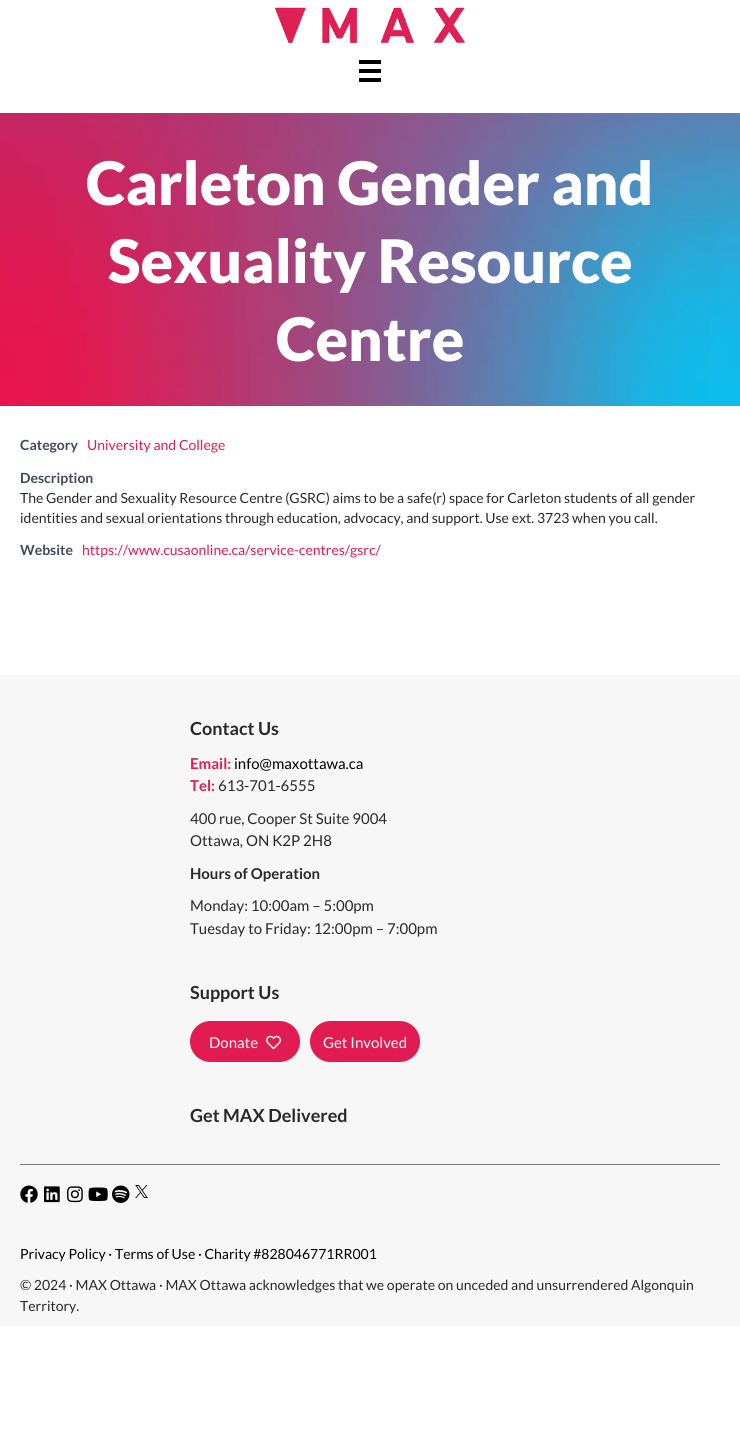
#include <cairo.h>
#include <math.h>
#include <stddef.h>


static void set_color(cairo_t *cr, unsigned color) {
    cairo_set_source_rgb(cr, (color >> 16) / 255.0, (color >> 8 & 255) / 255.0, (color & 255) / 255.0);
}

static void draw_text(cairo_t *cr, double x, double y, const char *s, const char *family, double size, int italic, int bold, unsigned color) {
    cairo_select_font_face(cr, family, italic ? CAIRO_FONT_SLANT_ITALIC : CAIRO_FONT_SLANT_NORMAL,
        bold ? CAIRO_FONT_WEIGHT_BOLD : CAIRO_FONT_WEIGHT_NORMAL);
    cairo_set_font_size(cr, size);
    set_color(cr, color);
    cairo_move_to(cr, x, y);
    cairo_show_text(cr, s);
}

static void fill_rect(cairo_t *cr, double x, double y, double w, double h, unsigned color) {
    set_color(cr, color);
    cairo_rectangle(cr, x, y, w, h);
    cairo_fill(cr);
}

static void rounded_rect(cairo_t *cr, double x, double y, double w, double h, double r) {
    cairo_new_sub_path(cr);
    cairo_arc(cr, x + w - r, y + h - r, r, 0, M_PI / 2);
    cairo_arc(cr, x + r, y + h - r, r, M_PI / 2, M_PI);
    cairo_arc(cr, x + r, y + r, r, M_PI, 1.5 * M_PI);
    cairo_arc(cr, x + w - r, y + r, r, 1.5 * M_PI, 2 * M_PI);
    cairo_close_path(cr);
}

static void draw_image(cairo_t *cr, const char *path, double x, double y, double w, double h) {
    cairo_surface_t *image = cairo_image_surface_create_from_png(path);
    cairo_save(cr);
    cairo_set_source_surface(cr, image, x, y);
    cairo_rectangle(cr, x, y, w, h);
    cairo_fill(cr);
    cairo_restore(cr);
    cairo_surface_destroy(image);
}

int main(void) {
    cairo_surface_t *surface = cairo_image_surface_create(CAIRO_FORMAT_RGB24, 740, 1440);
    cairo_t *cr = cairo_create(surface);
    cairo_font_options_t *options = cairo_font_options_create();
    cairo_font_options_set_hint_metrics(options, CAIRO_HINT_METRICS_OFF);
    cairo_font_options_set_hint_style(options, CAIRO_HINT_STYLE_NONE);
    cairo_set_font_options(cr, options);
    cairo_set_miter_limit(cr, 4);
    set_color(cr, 0xFFFFFF);
    cairo_paint(cr);
    draw_image(cr, "assets/img1.png", 275, 7, 190, 36);
    fill_rect(cr, 359, 60, 22, 4, 0x000000);
    fill_rect(cr, 359, 69, 22, 4, 0x000000);
    fill_rect(cr, 359, 78, 22, 4, 0x000000);
    draw_image(cr, "assets/img2.png", 0, 113, 740, 293);
    draw_text(cr, 86, 205, "Carleton Gender and", "Lato Black", 60, 0, 0, 0xFFFFFF);
    draw_text(cr, 108, 283, "Sexuality Resource", "Lato Black", 60, 0, 0, 0xFFFFFF);
    draw_text(cr, 276, 361, "Centre", "Lato Black", 60, 0, 0, 0xFFFFFF);
    draw_text(cr, 20, 450, "Category", "Lato", 14, 0, 1, 0x3F4B5B);
    draw_text(cr, 87, 450, "University and College", "Lato", 14, 0, 0, 0xE21B52);
    draw_text(cr, 20, 483, "Description", "Lato", 14, 0, 1, 0x3F4B5B);
    draw_text(cr, 20, 503, "The Gender and Sexuality Resource Centre (GSRC) aims to be a safe(r) space for Carleton students of all gender", "Lato", 14, 0, 0, 0x2A2829);
    draw_text(cr, 20, 523, "identities and sexual orientations through education, advocacy, and support. Use ext. 3723 when you call.", "Lato", 14, 0, 0, 0x2A2829);
    draw_text(cr, 20, 555, "Website", "Lato", 14, 0, 1, 0x3F4B5B);
    draw_text(cr, 82, 555, "https://www.cusaonline.ca/service-centres/gsrc/", "Lato", 14, 0, 0, 0xE21B52);
    fill_rect(cr, 0, 675, 740, 651, 0xF7F7F7);
    draw_text(cr, 190, 735, "Contact Us", "Lato", 18, 0, 1, 0x2A2829);
    draw_text(cr, 190, 769, "Email:", "Lato", 15, 0, 1, 0xE21B52);
    draw_text(cr, 234, 769, "info@maxottawa.ca", "Lato", 15, 0, 0, 0x000000);
    draw_text(cr, 190, 791, "Tel:", "Lato", 15, 0, 1, 0xE21B52);
    draw_text(cr, 218, 791, "613-701-6555", "Lato", 15, 0, 0, 0x2A2829);
    draw_text(cr, 190, 824, "400 rue, Cooper St Suite 9004", "Lato", 15, 0, 0, 0x2A2829);
    draw_text(cr, 190, 846, "Ottawa, ON K2P 2H8", "Lato", 15, 0, 0, 0x2A2829);
    draw_text(cr, 190, 879, "Hours of Operation", "Lato", 15, 0, 1, 0x2A2829);
    draw_text(cr, 190, 911, "Monday: 10:00am – 5:00pm", "Lato", 15, 0, 0, 0x2A2829);
    draw_text(cr, 190, 934, "Tuesday to Friday: 12:00pm – 7:00pm", "Lato", 15, 0, 0, 0x2A2829);
    draw_text(cr, 190, 999, "Support Us", "Lato", 18, 0, 1, 0x2A2829);
    set_color(cr, 0xE21B52);
    rounded_rect(cr, 190, 1021, 110, 41, 20.5);
    cairo_fill(cr);
    draw_text(cr, 209, 1048, "Donate", "Lato", 15, 0, 0, 0xFFFFFF);
    draw_image(cr, "assets/img3.png", 266, 1035, 15, 14);
    set_color(cr, 0xE21B52);
    rounded_rect(cr, 310, 1021, 110, 41, 20.5);
    cairo_fill(cr);
    draw_text(cr, 323, 1048, "Get Involved", "Lato", 15, 0, 0, 0xFFFFFF);
    draw_text(cr, 190, 1122, "Get MAX Delivered", "Lato", 18, 0, 1, 0x2A2829);
    fill_rect(cr, 20, 1164, 700, 1, 0x7C7C7C);
    draw_image(cr, "assets/img4.png", 20, 1185, 18, 18);
    draw_image(cr, "assets/img5.png", 44, 1186, 16, 17);
    draw_image(cr, "assets/img6.png", 67, 1186, 16, 17);
    draw_image(cr, "assets/img7.png", 88, 1187, 20, 14);
    draw_image(cr, "assets/img8.png", 112, 1185, 18, 18);
    draw_image(cr, "assets/img9.png", 135, 1185, 13, 13);
    draw_text(cr, 20, 1259, "Privacy Policy · Terms of Use · Charity #828046771RR001", "Lato", 14, 0, 0, 0x000000);
    draw_text(cr, 20, 1290, "© 2024 · MAX Ottawa · MAX Ottawa acknowledges that we operate on unceded and unsurrendered Algonquin", "Lato", 14, 0, 0, 0x2A2829);
    draw_text(cr, 20, 1311, "Territory.", "Lato", 14, 0, 0, 0x2A2829);
    cairo_surface_write_to_png(surface, "output.png");
    cairo_font_options_destroy(options);
    cairo_destroy(cr);
    cairo_surface_destroy(surface);
    return 0;
}
